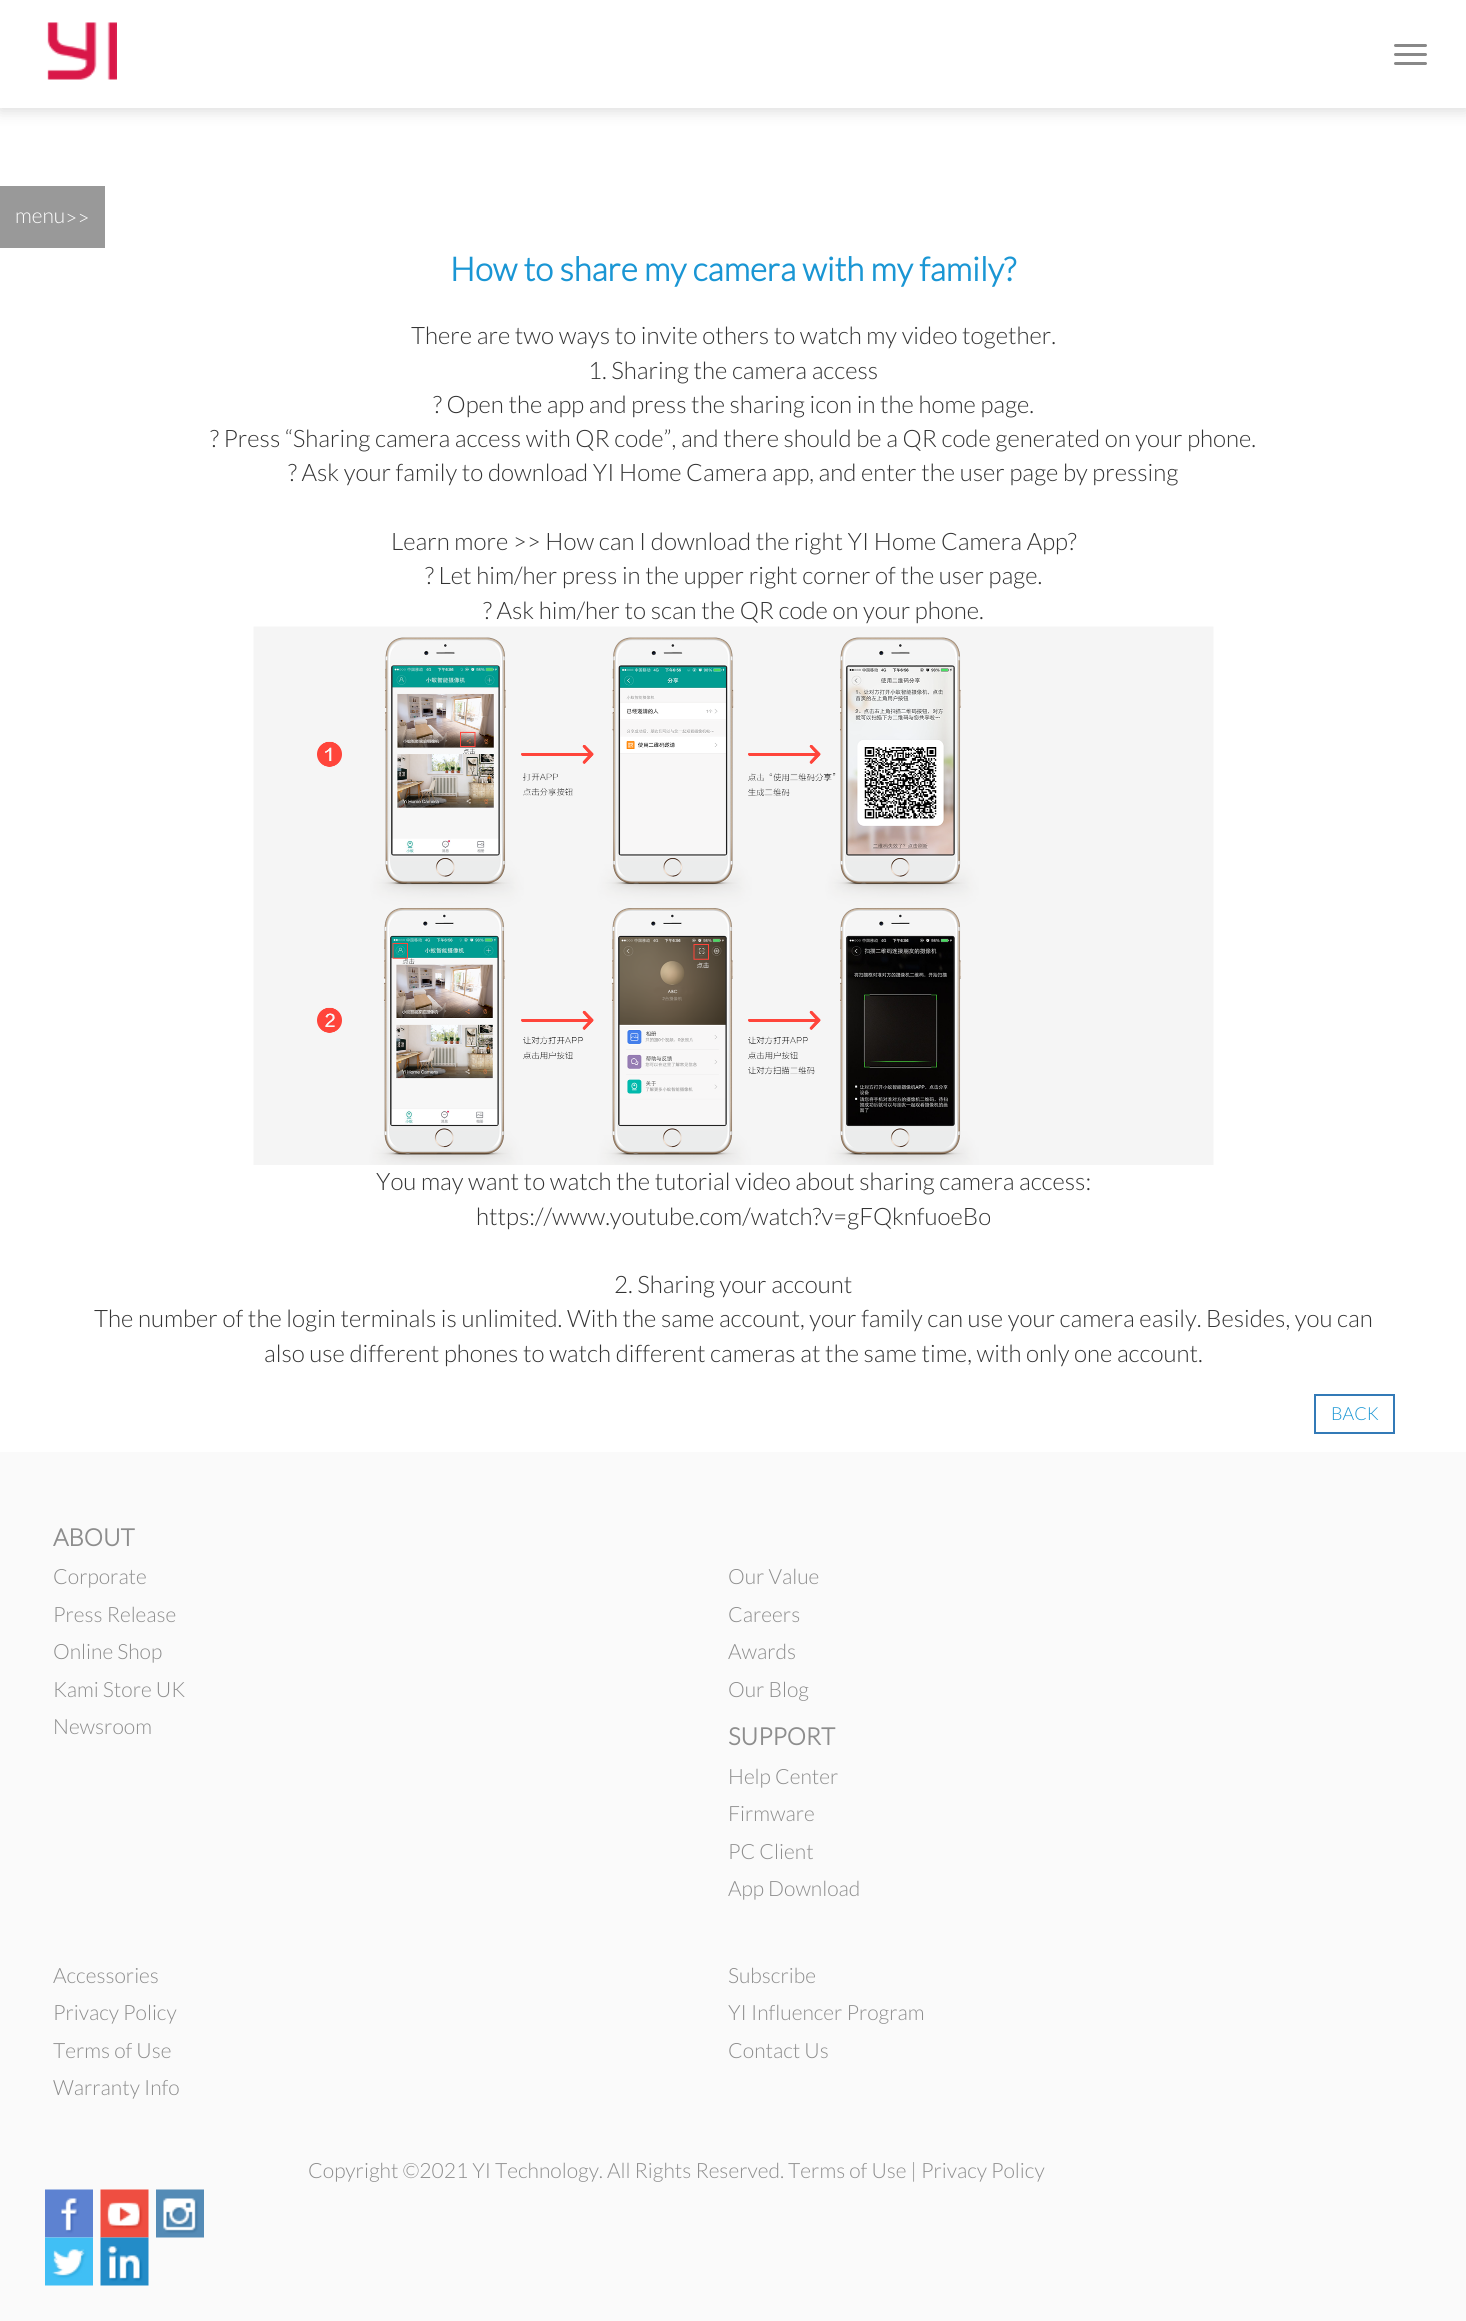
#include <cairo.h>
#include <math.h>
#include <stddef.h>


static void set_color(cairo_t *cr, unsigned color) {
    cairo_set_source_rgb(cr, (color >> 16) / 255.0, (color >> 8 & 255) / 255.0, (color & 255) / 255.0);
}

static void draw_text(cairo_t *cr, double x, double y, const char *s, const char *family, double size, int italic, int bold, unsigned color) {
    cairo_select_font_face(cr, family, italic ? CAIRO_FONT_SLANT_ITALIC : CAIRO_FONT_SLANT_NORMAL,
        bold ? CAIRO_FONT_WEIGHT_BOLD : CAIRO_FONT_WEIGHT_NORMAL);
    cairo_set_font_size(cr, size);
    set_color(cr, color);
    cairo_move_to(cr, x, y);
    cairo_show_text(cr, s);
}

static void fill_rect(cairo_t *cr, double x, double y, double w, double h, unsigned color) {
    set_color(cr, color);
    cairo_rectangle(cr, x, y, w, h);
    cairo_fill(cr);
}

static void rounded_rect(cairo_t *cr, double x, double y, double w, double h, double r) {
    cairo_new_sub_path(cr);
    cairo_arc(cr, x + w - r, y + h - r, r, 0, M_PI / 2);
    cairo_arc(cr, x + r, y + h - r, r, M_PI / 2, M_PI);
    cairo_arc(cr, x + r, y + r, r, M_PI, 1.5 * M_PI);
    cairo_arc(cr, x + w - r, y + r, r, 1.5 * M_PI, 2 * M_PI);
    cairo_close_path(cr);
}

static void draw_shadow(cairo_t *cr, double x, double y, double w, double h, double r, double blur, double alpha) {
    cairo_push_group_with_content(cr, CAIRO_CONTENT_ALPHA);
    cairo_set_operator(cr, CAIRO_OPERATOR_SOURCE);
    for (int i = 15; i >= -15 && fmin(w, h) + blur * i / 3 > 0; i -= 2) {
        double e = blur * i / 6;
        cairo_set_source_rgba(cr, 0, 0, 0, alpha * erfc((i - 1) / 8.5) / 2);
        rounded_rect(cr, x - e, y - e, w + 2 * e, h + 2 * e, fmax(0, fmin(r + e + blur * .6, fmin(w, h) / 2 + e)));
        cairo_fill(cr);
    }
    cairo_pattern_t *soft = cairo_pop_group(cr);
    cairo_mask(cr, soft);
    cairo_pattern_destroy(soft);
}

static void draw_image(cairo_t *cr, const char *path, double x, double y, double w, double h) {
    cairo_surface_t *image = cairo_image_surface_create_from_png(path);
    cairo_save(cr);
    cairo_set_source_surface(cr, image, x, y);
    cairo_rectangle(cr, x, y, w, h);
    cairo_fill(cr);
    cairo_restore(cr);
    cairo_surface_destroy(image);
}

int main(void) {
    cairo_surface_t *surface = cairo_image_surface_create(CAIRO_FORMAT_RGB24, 1466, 2321);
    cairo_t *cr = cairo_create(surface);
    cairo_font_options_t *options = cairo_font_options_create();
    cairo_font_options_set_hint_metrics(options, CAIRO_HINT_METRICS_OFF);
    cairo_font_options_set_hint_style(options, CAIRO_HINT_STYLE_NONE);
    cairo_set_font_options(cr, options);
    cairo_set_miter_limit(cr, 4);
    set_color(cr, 0xFFFFFF);
    cairo_paint(cr);
    cairo_save(cr);
    cairo_rectangle(cr, 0, 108, 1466, 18);
    cairo_clip(cr);
    set_color(cr, 0xDCDCDC);
    draw_shadow(cr, 0, 3, 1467, 108, 0, 7.5, 1);
    cairo_restore(cr);
    draw_image(cr, "assets/img1.png", 47, 22, 70, 58);
    set_color(cr, 0x888888);
    rounded_rect(cr, 1394, 44, 33, 3, 1.5);
    cairo_fill(cr);
    rounded_rect(cr, 1394, 53, 33, 3, 1.5);
    cairo_fill(cr);
    rounded_rect(cr, 1394, 62, 33, 3, 1.5);
    cairo_fill(cr);
    fill_rect(cr, 0, 186, 105, 62, 0x999999);
    draw_text(cr, 15, 223, "menu", "Lato Light", 21, 0, 0, 0xFFFFFF);
    draw_text(cr, 65, 225, ">>", "Lato Light", 21, 0, 0, 0xFFFFFF);
    draw_text(cr, 450, 281, "How to share my camera with my family?", "Lato", 33, 0, 1, 0x1A96D4);
    draw_text(cr, 411, 344, "There are two ways to invite others to watch my video together.", "Lato Light", 24, 0, 0, 0x333333);
    draw_text(cr, 588, 379, "1. Sharing the camera access", "Lato Light", 24, 0, 0, 0x333333);
    draw_text(cr, 433, 413, "? Open the app and press the sharing icon in the home page.", "Lato Light", 24, 0, 0, 0x333333);
    draw_text(cr, 210, 447, "? Press “Sharing camera access with QR code”, and there should be a QR code generated on your phone.", "Lato Light", 24, 0, 0, 0x333333);
    draw_text(cr, 288, 481, "? Ask your family to download YI Home Camera app, and enter the user page by pressing", "Lato Light", 24, 0, 0, 0x333333);
    draw_text(cr, 391, 550, "Learn more >> How can I download the right YI Home Camera App?", "Lato Light", 24, 0, 0, 0x333333);
    draw_text(cr, 425, 584, "? Let him/her press in the upper right corner of the user page.", "Lato Light", 24, 0, 0, 0x333333);
    draw_text(cr, 483, 619, "? Ask him/her to scan the QR code on your phone.", "Lato Light", 24, 0, 0, 0x333333);
    draw_image(cr, "assets/img2.png", 253, 626, 961, 539);
    draw_text(cr, 376, 1190, "You may want to watch the tutorial video about sharing camera access:", "Lato Light", 24, 0, 0, 0x333333);
    draw_text(cr, 476, 1225, "https://www.youtube.com/watch?v=gFQknfuoeBo", "Lato Light", 24, 0, 0, 0x333333);
    draw_text(cr, 614, 1293, "2. Sharing your account", "Lato Light", 24, 0, 0, 0x333333);
    draw_text(cr, 94, 1327, "The number of the login terminals is unlimited. With the same account, your family can use your camera easily. Besides, you can", "Lato Light", 24, 0, 0, 0x333333);
    draw_text(cr, 264, 1362, "also use different phones to watch different cameras at the same time, with only one account.", "Lato Light", 24, 0, 0, 0x333333);
    cairo_rectangle(cr, 1315, 1395, 79, 38);
    set_color(cr, 0x337AB7);
    cairo_stroke(cr);
    draw_text(cr, 1331, 1420, "BACK", "Lato Light", 18, 0, 0, 0x1A96D4);
    fill_rect(cr, 0, 1452, 1466, 869, 0xFAFAFA);
    draw_text(cr, 53, 1546, "ABOUT", "Lato", 24, 0, 1, 0x8D8D8D);
    draw_text(cr, 53, 1584, "Corporate", "Lato Light", 21, 0, 0, 0x8D8D8D);
    draw_text(cr, 53, 1622, "Press Release", "Lato Light", 21, 0, 0, 0x8D8D8D);
    draw_text(cr, 53, 1659, "Online Shop", "Lato Light", 21, 0, 0, 0x8D8D8D);
    draw_text(cr, 53, 1697, "Kami Store UK", "Lato Light", 21, 0, 0, 0x8D8D8D);
    draw_text(cr, 53, 1734, "Newsroom", "Lato Light", 21, 0, 0, 0x8D8D8D);
    draw_text(cr, 728, 1584, "Our Value", "Lato Light", 21, 0, 0, 0x8D8D8D);
    draw_text(cr, 728, 1622, "Careers", "Lato Light", 21, 0, 0, 0x8D8D8D);
    draw_text(cr, 728, 1659, "Awards", "Lato Light", 21, 0, 0, 0x8D8D8D);
    draw_text(cr, 728, 1697, "Our Blog", "Lato Light", 21, 0, 0, 0x8D8D8D);
    draw_text(cr, 728, 1745, "SUPPORT", "Lato", 24, 0, 1, 0x8D8D8D);
    draw_text(cr, 728, 1784, "Help Center", "Lato Light", 21, 0, 0, 0x8D8D8D);
    draw_text(cr, 728, 1821, "Firmware", "Lato Light", 21, 0, 0, 0x8D8D8D);
    draw_text(cr, 728, 1859, "PC Client", "Lato Light", 21, 0, 0, 0x8D8D8D);
    draw_text(cr, 728, 1896, "App Download", "Lato Light", 21, 0, 0, 0x8D8D8D);
    draw_text(cr, 53, 1983, "Accessories", "Lato Light", 21, 0, 0, 0x8D8D8D);
    draw_text(cr, 53, 2020, "Privacy Policy", "Lato Light", 21, 0, 0, 0x8D8D8D);
    draw_text(cr, 53, 2058, "Terms of Use", "Lato Light", 21, 0, 0, 0x8D8D8D);
    draw_text(cr, 53, 2095, "Warranty Info", "Lato Light", 21, 0, 0, 0x8D8D8D);
    draw_text(cr, 728, 1983, "Subscribe", "Lato Light", 21, 0, 0, 0x8D8D8D);
    draw_text(cr, 728, 2020, "YI Influencer Program", "Lato Light", 21, 0, 0, 0x8D8D8D);
    draw_text(cr, 728, 2058, "Contact Us", "Lato Light", 21, 0, 0, 0x8D8D8D);
    draw_text(cr, 308, 2178, "Copyright ©2021 YI Technology. All Rights Reserved. Terms of Use | Privacy Policy", "Lato Light", 21, 0, 0, 0x8D8D8D);
    draw_image(cr, "assets/img3.png", 45, 2189, 48, 49);
    draw_image(cr, "assets/img4.png", 100, 2189, 49, 49);
    draw_image(cr, "assets/img5.png", 156, 2189, 48, 49);
    draw_image(cr, "assets/img6.png", 45, 2237, 48, 49);
    draw_image(cr, "assets/img7.png", 100, 2237, 49, 49);
    cairo_surface_write_to_png(surface, "output.png");
    cairo_font_options_destroy(options);
    cairo_destroy(cr);
    cairo_surface_destroy(surface);
    return 0;
}
